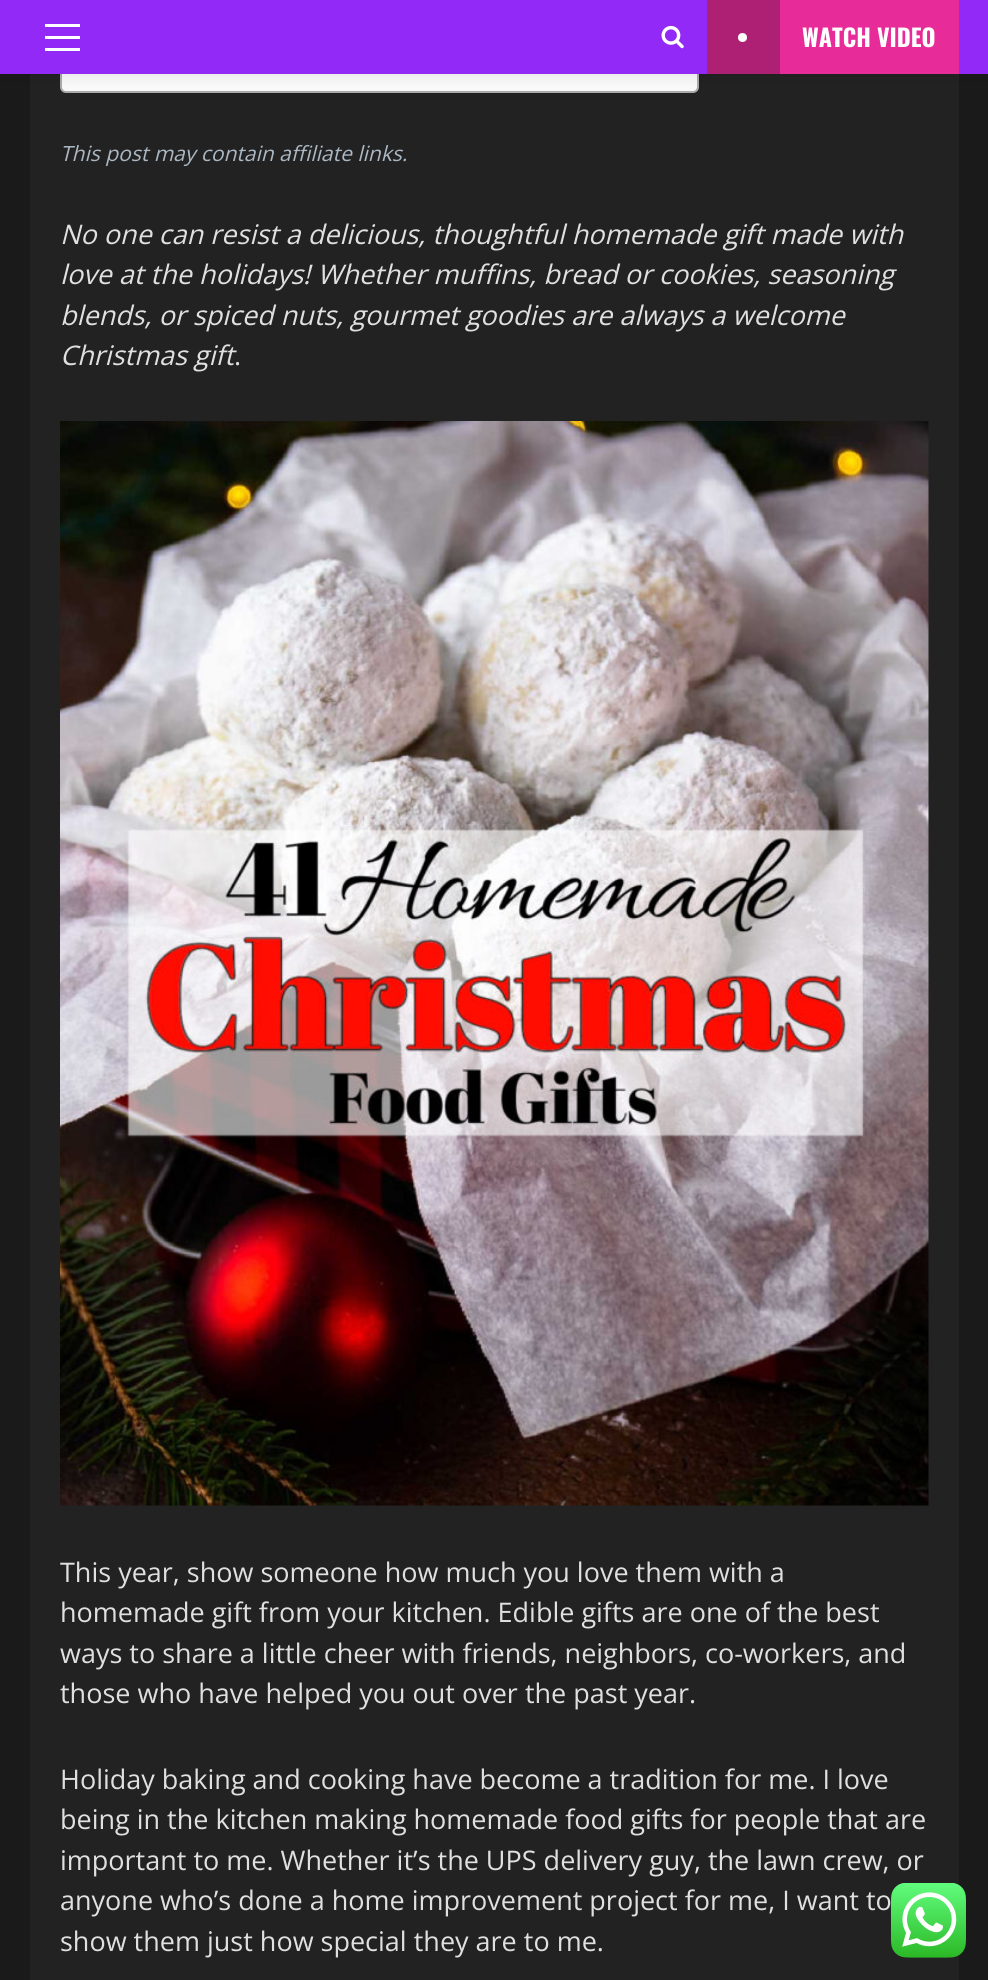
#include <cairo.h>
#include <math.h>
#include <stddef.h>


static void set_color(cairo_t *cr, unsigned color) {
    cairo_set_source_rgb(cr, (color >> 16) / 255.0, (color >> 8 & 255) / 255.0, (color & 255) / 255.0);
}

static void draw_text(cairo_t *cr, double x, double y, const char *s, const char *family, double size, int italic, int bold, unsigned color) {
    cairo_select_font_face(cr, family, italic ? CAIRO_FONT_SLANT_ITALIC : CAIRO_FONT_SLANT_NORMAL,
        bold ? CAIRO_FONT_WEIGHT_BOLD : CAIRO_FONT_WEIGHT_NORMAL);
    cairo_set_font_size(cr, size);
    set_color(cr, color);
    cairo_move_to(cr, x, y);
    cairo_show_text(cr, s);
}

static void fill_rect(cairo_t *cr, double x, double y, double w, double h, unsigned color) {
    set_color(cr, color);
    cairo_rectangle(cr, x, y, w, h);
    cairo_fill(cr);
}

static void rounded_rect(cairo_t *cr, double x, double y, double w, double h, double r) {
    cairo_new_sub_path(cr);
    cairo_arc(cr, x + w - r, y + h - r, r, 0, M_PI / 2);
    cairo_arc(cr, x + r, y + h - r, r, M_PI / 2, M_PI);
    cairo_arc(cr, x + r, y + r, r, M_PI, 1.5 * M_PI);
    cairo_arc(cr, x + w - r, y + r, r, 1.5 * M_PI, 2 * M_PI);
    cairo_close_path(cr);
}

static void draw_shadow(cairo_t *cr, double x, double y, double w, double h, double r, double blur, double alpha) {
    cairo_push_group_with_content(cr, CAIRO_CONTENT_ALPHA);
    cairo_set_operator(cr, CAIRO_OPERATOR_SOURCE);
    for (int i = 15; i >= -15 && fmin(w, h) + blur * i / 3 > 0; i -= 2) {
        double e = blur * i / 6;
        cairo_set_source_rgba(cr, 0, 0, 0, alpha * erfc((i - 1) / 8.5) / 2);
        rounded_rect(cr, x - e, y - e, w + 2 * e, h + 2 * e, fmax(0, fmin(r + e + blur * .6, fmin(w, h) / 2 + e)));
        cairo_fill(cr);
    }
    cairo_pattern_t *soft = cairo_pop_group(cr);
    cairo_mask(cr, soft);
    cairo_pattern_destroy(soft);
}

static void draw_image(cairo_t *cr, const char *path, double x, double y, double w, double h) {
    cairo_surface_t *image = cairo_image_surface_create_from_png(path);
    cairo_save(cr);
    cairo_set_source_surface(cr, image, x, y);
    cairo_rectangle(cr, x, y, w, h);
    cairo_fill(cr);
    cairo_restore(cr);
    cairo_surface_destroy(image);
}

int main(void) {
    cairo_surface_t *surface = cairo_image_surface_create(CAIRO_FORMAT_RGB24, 988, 1980);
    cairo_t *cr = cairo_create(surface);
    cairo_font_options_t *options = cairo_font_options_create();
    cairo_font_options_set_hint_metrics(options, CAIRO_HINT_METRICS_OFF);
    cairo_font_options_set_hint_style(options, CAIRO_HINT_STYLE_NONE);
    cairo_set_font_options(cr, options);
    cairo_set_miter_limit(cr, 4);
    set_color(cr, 0x1A1A1A);
    cairo_paint(cr);
    fill_rect(cr, 30, 74, 929, 1906, 0x222222);
    set_color(cr, 0xF9F9F9);
    rounded_rect(cr, 61, -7, 637, 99, 5);
    cairo_fill_preserve(cr);
    set_color(cr, 0xAAAAAA);
    cairo_stroke(cr);
    set_color(cr, 0x000000);
    draw_shadow(cr, 0, 3, 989, 74, 0, 6, 0.08);
    fill_rect(cr, 0, 0, 988, 74, 0x9229F7);
    fill_rect(cr, 45, 36, 35, 3, 0xFFFFFF);
    fill_rect(cr, 45, 24, 35, 3, 0xFFFFFF);
    fill_rect(cr, 45, 48, 35, 3, 0xFFFFFF);
    draw_image(cr, "assets/img1.png", 661, 25, 23, 24);
    fill_rect(cr, 780, 0, 179, 74, 0xE72B99);
    fill_rect(cr, 707, 0, 73, 74, 0xAD2073);
    set_color(cr, 0xFFFFFF);
    cairo_arc(cr, 742.5, 37.5, 4.5, 0, 2 * M_PI);
    cairo_fill(cr);
    draw_text(cr, 802, 47, "WATCH VIDEO", "Oswald", 24, 0, 1, 0xFFFFFF);
    draw_text(cr, 60, 161, "This post may contain affiliate links.", "Open Sans", 21, 1, 0, 0xABB8C3);
    draw_text(cr, 60, 244, "No one can resist a delicious, thoughtful homemade gift made with", "Open Sans", 27, 1, 0, 0xE0E0E0);
    draw_text(cr, 60, 284, "love at the holidays! Whether muffins, bread or cookies, seasoning", "Open Sans", 27, 1, 0, 0xE0E0E0);
    draw_text(cr, 60, 325, "blends, or spiced nuts, gourmet goodies are always a welcome", "Open Sans", 27, 1, 0, 0xE0E0E0);
    draw_text(cr, 60, 365, "Christmas gift", "Open Sans", 27, 1, 0, 0xE0E0E0);
    draw_text(cr, 234, 365, ".", "Open Sans", 27, 0, 0, 0xE0E0E0);
    draw_image(cr, "assets/img2.png", 60, 421, 869, 1085);
    draw_text(cr, 60, 1582, "This year, show someone how much you love them with a", "Open Sans", 27, 0, 0, 0xE0E0E0);
    draw_text(cr, 60, 1622, "homemade gift from your kitchen. Edible gifts are one of the best", "Open Sans", 27, 0, 0, 0xE0E0E0);
    draw_text(cr, 60, 1663, "ways to share a little cheer with friends, neighbors, co-workers, and", "Open Sans", 27, 0, 0, 0xE0E0E0);
    draw_text(cr, 60, 1703, "those who have helped you out over the past year.", "Open Sans", 27, 0, 0, 0xE0E0E0);
    draw_text(cr, 60, 1789, "Holiday baking and cooking have become a tradition for me. I love", "Open Sans", 27, 0, 0, 0xE0E0E0);
    draw_text(cr, 60, 1829, "being in the kitchen making homemade food gifts for people that are", "Open Sans", 27, 0, 0, 0xE0E0E0);
    draw_text(cr, 60, 1870, "important to me. Whether it’s the UPS delivery guy, the lawn crew, or", "Open Sans", 27, 0, 0, 0xE0E0E0);
    draw_text(cr, 60, 1910, "anyone who’s done a home improvement project for me, I want to", "Open Sans", 27, 0, 0, 0xE0E0E0);
    draw_text(cr, 60, 1951, "show them just how special they are to me.", "Open Sans", 27, 0, 0, 0xE0E0E0);
    draw_image(cr, "assets/img3.png", 891, 1883, 75, 75);
    cairo_surface_write_to_png(surface, "output.png");
    cairo_font_options_destroy(options);
    cairo_destroy(cr);
    cairo_surface_destroy(surface);
    return 0;
}
